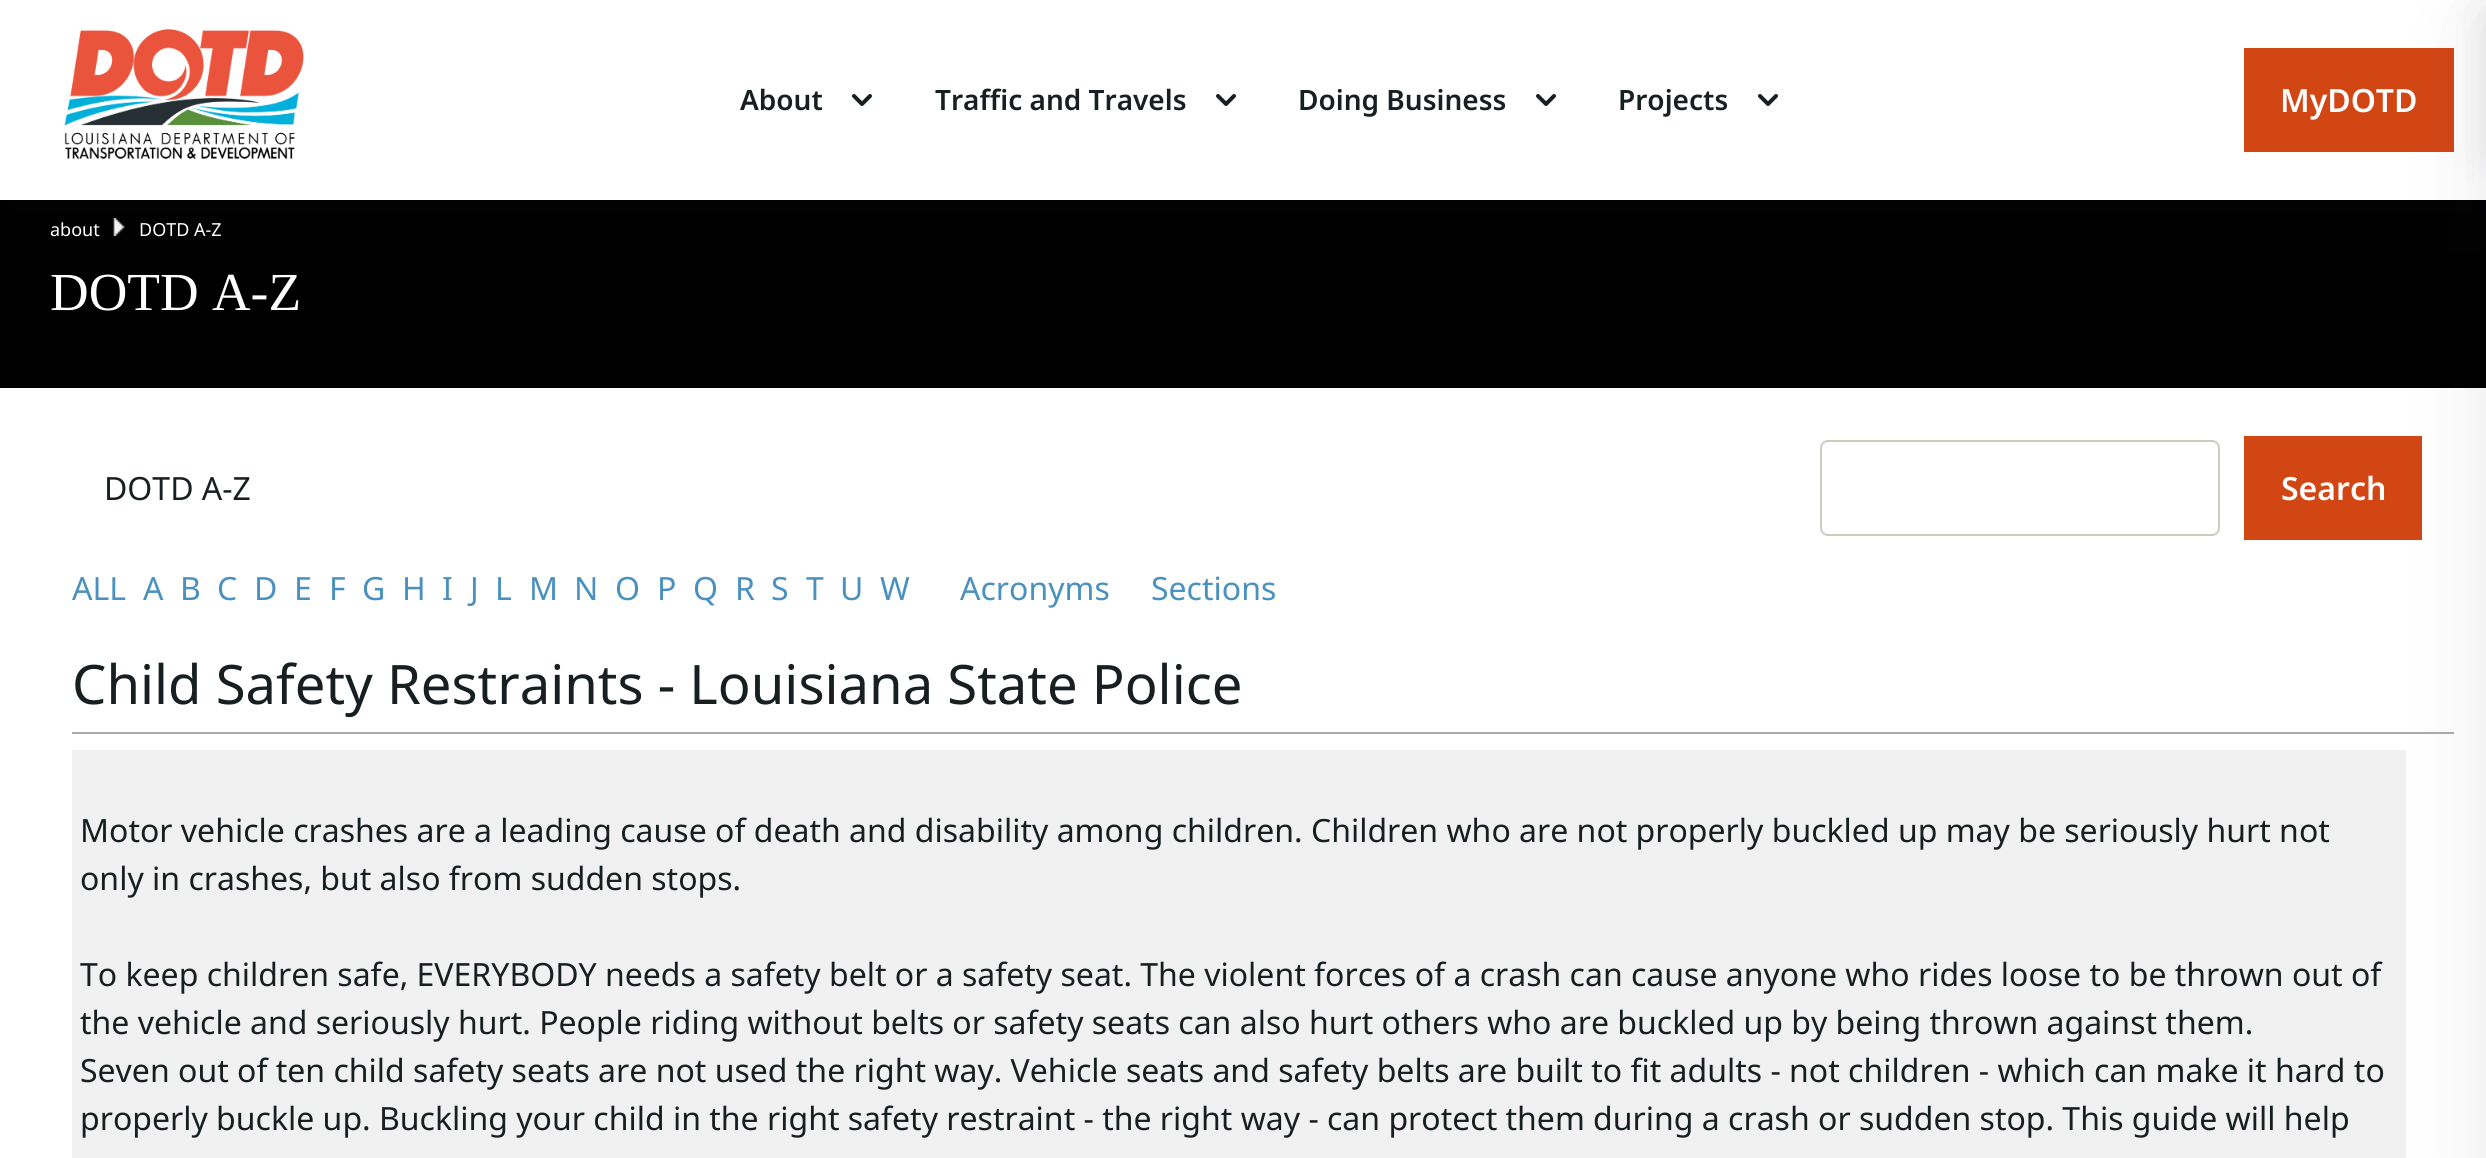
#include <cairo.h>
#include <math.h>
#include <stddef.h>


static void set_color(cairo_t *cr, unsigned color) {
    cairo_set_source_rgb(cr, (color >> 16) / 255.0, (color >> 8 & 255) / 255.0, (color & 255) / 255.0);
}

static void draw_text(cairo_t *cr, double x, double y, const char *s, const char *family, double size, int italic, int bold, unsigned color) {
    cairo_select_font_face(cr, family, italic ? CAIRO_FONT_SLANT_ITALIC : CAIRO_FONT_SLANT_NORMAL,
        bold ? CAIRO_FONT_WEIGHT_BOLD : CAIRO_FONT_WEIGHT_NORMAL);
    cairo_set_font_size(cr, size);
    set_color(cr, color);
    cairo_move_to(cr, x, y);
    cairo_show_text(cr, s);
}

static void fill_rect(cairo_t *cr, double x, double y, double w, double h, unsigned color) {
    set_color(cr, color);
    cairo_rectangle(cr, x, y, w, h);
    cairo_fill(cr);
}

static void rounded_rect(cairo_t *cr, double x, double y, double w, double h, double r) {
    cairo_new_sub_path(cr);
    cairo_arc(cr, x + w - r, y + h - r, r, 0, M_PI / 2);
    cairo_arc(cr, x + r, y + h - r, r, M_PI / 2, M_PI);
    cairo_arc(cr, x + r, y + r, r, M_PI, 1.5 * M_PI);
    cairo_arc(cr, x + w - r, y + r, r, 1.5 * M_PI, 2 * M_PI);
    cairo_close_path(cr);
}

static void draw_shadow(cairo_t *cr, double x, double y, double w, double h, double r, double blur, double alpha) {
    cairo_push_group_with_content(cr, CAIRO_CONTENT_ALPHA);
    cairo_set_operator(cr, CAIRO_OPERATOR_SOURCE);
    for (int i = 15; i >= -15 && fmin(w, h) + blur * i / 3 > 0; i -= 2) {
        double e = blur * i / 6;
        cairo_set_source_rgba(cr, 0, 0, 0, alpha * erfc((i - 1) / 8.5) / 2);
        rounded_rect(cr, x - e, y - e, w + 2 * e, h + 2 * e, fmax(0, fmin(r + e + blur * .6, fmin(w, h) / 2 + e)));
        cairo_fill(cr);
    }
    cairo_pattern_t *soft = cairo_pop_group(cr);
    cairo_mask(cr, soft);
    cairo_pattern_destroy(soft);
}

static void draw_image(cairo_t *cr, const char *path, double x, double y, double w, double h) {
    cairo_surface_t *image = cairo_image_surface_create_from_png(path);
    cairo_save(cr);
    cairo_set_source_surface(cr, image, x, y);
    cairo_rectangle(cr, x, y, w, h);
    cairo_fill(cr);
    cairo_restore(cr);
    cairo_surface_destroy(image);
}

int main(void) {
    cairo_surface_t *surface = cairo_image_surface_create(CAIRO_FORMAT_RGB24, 2486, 1158);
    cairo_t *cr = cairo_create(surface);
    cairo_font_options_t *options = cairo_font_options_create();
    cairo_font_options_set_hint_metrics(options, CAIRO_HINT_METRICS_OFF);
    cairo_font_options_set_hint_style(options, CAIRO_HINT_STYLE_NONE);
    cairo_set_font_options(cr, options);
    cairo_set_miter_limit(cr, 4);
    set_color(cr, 0xFFFFFF);
    cairo_paint(cr);
    fill_rect(cr, 0, 200, 2486, 188, 0x000000);
    draw_image(cr, "assets/img3.png", 113, 218, 12, 18);
    cairo_save(cr);
    cairo_rectangle(cr, 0, 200, 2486, 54);
    cairo_clip(cr);
    set_color(cr, 0x181F20);
    draw_shadow(cr, 0, 20, 2486, 200, 0, 40, 0.1);
    cairo_restore(cr);
    draw_image(cr, "assets/img1.png", 64, 29, 240, 130);
    draw_text(cr, 740, 110, "About", "Noto Sans SemiBold", 28, 0, 0, 0x181F20);
    draw_image(cr, "assets/img2.png", 852, 94, 20, 12);
    draw_text(cr, 935, 110, "Traffic and Travels", "Noto Sans SemiBold", 28, 0, 0, 0x181F20);
    draw_image(cr, "assets/img2.png", 1216, 94, 20, 12);
    draw_text(cr, 1298, 110, "Doing Business", "Noto Sans SemiBold", 28, 0, 0, 0x181F20);
    draw_image(cr, "assets/img2.png", 1536, 94, 20, 12);
    draw_text(cr, 1618, 110, "Projects", "Noto Sans SemiBold", 28, 0, 0, 0x181F20);
    draw_image(cr, "assets/img2.png", 1758, 94, 20, 12);
    fill_rect(cr, 2244, 48, 210, 104, 0xD24614);
    draw_text(cr, 2280, 112, "MyDOTD", "Noto Sans SemiBold", 32, 0, 0, 0xFFFFFF);
    fill_rect(cr, 2244, 436, 178, 104, 0xD24614);
    fill_rect(cr, 72, 732, 2382, 2, 0xAAAAAA);
    fill_rect(cr, 72, 750, 2334, 408, 0xF1F1F1);
    set_color(cr, 0x181F20);
    draw_shadow(cr, 2486, 20, 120, 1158, 0, 40, 0.1);
    draw_shadow(cr, 2486, 10, 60, 144, 0, 20, 0.1);
    draw_text(cr, 50, 236, "about", "Noto Sans", 18, 0, 0, 0xFFFFFF);
    draw_text(cr, 139, 236, "DOTD A-Z", "Noto Sans", 18, 0, 0, 0xFFFFFF);
    draw_text(cr, 50, 310, "DOTD A-Z", "Liberation Serif", 53.5, 0, 0, 0xFFFFFF);
    draw_text(cr, 104, 500, "DOTD A-Z", "Noto Sans", 32, 0, 0, 0x181F20);
    rounded_rect(cr, 1821, 441, 398, 94, 7);
    set_color(cr, 0xCECAC0);
    cairo_stroke(cr);
    draw_text(cr, 2281, 500, "Search", "Noto Sans SemiBold", 32, 0, 0, 0xFFFFFF);
    draw_text(cr, 72, 600, "ALL", "Noto Sans", 32, 0, 0, 0x4A91BF);
    draw_text(cr, 143, 600, "A", "Noto Sans", 32, 0, 0, 0x4A91BF);
    draw_text(cr, 180, 600, "B", "Noto Sans", 32, 0, 0, 0x4A91BF);
    draw_text(cr, 217, 600, "C", "Noto Sans", 32, 0, 0, 0x4A91BF);
    draw_text(cr, 254, 600, "D", "Noto Sans", 32, 0, 0, 0x4A91BF);
    draw_text(cr, 294, 600, "E", "Noto Sans", 32, 0, 0, 0x4A91BF);
    draw_text(cr, 329, 600, "F", "Noto Sans", 32, 0, 0, 0x4A91BF);
    draw_text(cr, 362, 600, "G", "Noto Sans", 32, 0, 0, 0x4A91BF);
    draw_text(cr, 402, 600, "H", "Noto Sans", 32, 0, 0, 0x4A91BF);
    draw_text(cr, 442, 600, "I", "Noto Sans", 32, 0, 0, 0x4A91BF);
    draw_text(cr, 470, 600, "J", "Noto Sans", 32, 0, 0, 0x4A91BF);
    draw_text(cr, 495, 600, "L", "Noto Sans", 32, 0, 0, 0x4A91BF);
    draw_text(cr, 529, 600, "M", "Noto Sans", 32, 0, 0, 0x4A91BF);
    draw_text(cr, 574, 600, "N", "Noto Sans", 32, 0, 0, 0x4A91BF);
    draw_text(cr, 615, 600, "O", "Noto Sans", 32, 0, 0, 0x4A91BF);
    draw_text(cr, 657, 600, "P", "Noto Sans", 32, 0, 0, 0x4A91BF);
    draw_text(cr, 693, 600, "Q", "Noto Sans", 32, 0, 0, 0x4A91BF);
    draw_text(cr, 735, 600, "R", "Noto Sans", 32, 0, 0, 0x4A91BF);
    draw_text(cr, 771, 600, "S", "Noto Sans", 32, 0, 0, 0x4A91BF);
    draw_text(cr, 806, 600, "T", "Noto Sans", 32, 0, 0, 0x4A91BF);
    draw_text(cr, 840, 600, "U", "Noto Sans", 32, 0, 0, 0x4A91BF);
    draw_text(cr, 880, 600, "W", "Noto Sans", 32, 0, 0, 0x4A91BF);
    draw_text(cr, 960, 600, "Acronyms", "Noto Sans", 32, 0, 0, 0x4A91BF);
    draw_text(cr, 1151, 600, "Sections", "Noto Sans", 32, 0, 0, 0x4A91BF);
    draw_text(cr, 72, 704, "Child Safety Restraints - Louisiana State Police", "Noto Sans", 54.4, 0, 0, 0x181F20);
    draw_text(cr, 80, 842, "Motor vehicle crashes are a leading cause of death and disability among children. Children who are not properly buckled up may be seriously hurt not", "Noto Sans", 32, 0, 0, 0x181F20);
    draw_text(cr, 80, 890, "only in crashes, but also from sudden stops.", "Noto Sans", 32, 0, 0, 0x181F20);
    draw_text(cr, 80, 986, "To keep children safe, EVERYBODY needs a safety belt or a safety seat. The violent forces of a crash can cause anyone who rides loose to be thrown out of", "Noto Sans", 32, 0, 0, 0x181F20);
    draw_text(cr, 80, 1034, "the vehicle and seriously hurt. People riding without belts or safety seats can also hurt others who are buckled up by being thrown against them.", "Noto Sans", 32, 0, 0, 0x181F20);
    draw_text(cr, 80, 1082, "Seven out of ten child safety seats are not used the right way. Vehicle seats and safety belts are built to fit adults - not children - which can make it hard to", "Noto Sans", 32, 0, 0, 0x181F20);
    draw_text(cr, 80, 1130, "properly buckle up. Buckling your child in the right safety restraint - the right way - can protect them during a crash or sudden stop. This guide will help", "Noto Sans", 32, 0, 0, 0x181F20);
    cairo_surface_write_to_png(surface, "output.png");
    cairo_font_options_destroy(options);
    cairo_destroy(cr);
    cairo_surface_destroy(surface);
    return 0;
}
